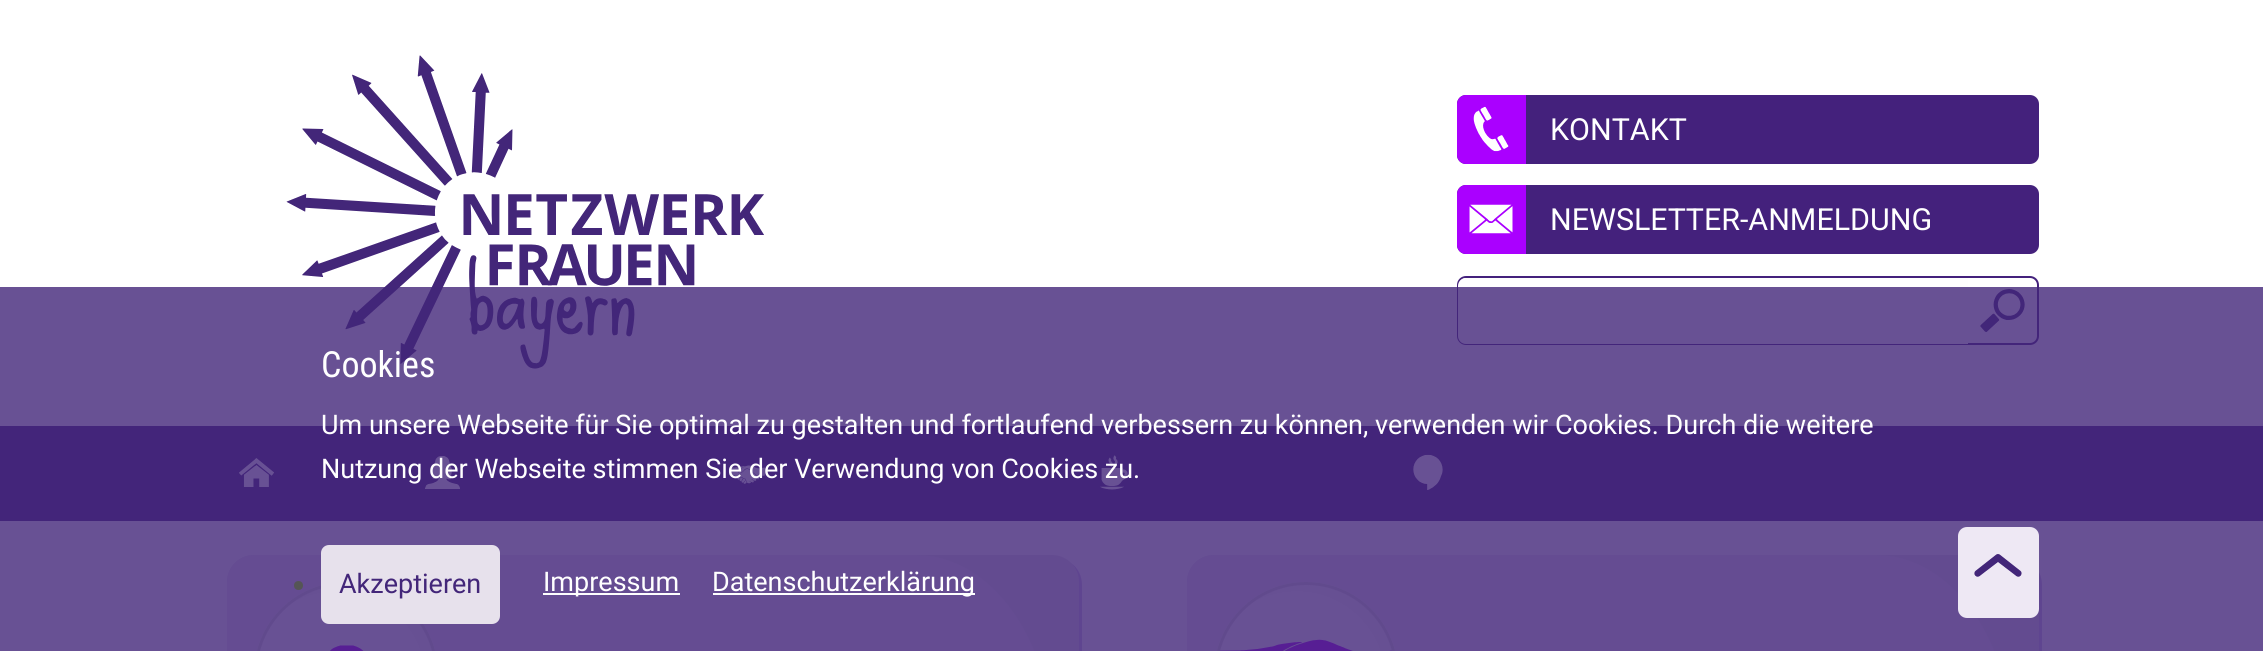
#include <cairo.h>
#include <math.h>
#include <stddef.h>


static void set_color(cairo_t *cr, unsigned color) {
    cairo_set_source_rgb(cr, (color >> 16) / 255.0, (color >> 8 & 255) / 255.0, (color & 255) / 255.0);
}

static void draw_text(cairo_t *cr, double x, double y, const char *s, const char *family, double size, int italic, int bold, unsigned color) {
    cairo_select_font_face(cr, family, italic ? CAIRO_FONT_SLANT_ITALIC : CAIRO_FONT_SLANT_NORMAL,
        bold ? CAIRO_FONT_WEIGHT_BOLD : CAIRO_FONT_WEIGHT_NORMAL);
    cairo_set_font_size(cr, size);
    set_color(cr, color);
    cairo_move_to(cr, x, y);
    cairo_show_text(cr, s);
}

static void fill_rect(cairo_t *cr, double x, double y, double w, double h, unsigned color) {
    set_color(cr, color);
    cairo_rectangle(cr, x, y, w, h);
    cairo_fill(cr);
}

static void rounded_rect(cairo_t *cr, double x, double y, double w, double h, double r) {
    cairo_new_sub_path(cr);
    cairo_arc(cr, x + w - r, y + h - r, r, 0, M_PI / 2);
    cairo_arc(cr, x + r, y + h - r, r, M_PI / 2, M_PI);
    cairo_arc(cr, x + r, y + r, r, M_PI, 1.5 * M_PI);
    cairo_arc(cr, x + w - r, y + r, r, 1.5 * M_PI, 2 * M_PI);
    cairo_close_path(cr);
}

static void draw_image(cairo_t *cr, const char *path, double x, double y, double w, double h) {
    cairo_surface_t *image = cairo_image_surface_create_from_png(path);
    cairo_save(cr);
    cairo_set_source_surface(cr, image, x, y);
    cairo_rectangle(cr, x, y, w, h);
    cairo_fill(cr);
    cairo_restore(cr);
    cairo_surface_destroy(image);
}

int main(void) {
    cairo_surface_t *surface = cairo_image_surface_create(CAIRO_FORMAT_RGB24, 2263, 651);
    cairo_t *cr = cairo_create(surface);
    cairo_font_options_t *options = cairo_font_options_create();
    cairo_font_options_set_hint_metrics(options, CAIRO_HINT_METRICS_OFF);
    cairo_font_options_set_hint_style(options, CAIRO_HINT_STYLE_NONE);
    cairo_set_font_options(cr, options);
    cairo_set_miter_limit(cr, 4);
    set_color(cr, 0xFFFFFF);
    cairo_paint(cr);
    draw_image(cr, "assets/img1.png", 286, 55, 478, 314);
    set_color(cr, 0x44217C);
    rounded_rect(cr, 1458, 96, 580, 67, 8);
    cairo_fill_preserve(cr);
    cairo_stroke(cr);
    set_color(cr, 0xAA00FF);
    cairo_new_path(cr);
    cairo_move_to(cr, 1466, 95);
    cairo_line_to(cr, 1526, 95);
    cairo_line_to(cr, 1526, 164);
    cairo_line_to(cr, 1466, 164);
    cairo_curve_to(cr, 1461, 164, 1457, 160, 1457, 155);
    cairo_line_to(cr, 1457, 104);
    cairo_curve_to(cr, 1457, 99, 1461, 95, 1466, 95);
    cairo_close_path(cr);
    cairo_fill(cr);
    draw_image(cr, "assets/img2.png", 1473, 106, 36, 46);
    draw_text(cr, 1550, 140, "KONTAKT", "Roboto", 30.4, 0, 0, 0xFFFFFF);
    set_color(cr, 0x44217C);
    rounded_rect(cr, 1458, 186, 580, 67, 8);
    cairo_fill_preserve(cr);
    cairo_stroke(cr);
    set_color(cr, 0xAA00FF);
    cairo_new_path(cr);
    cairo_move_to(cr, 1466, 185);
    cairo_line_to(cr, 1526, 185);
    cairo_line_to(cr, 1526, 254);
    cairo_line_to(cr, 1466, 254);
    cairo_curve_to(cr, 1461, 254, 1457, 250, 1457, 245);
    cairo_line_to(cr, 1457, 194);
    cairo_curve_to(cr, 1457, 189, 1461, 185, 1466, 185);
    cairo_close_path(cr);
    cairo_fill(cr);
    draw_image(cr, "assets/img3.png", 1469, 204, 44, 30);
    draw_text(cr, 1550, 230, "NEWSLETTER-ANMELDUNG", "Roboto", 30.4, 0, 0, 0xFFFFFF);
    rounded_rect(cr, 1458, 277, 580, 67, 8);
    set_color(cr, 0x44217C);
    cairo_stroke(cr);
    set_color(cr, 0xFEFEFE);
    cairo_new_path(cr);
    cairo_move_to(cr, 1466, 278);
    cairo_line_to(cr, 1968, 278);
    cairo_line_to(cr, 1968, 344);
    cairo_line_to(cr, 1466, 344);
    cairo_curve_to(cr, 1461.5, 344, 1458, 340.5, 1458, 336);
    cairo_line_to(cr, 1458, 286);
    cairo_curve_to(cr, 1458, 281.5, 1461.5, 278, 1466, 278);
    cairo_close_path(cr);
    cairo_fill(cr);
    draw_image(cr, "assets/img4.png", 1980, 289, 45, 43);
    fill_rect(cr, 0, 426, 2263, 95, 0x44217C);
    draw_image(cr, "assets/img5.png", 239, 458, 35, 29);
    draw_image(cr, "assets/img6.png", 425, 456, 35, 33);
    draw_image(cr, "assets/img7.png", 729, 465, 36, 19);
    draw_image(cr, "assets/img8.png", 1100, 455, 28, 35);
    draw_image(cr, "assets/img9.png", 1413, 454, 30, 36);
    set_color(cr, 0xD4C3EA);
    cairo_new_path(cr);
    cairo_move_to(cr, 238, 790);
    cairo_curve_to(cr, 243, 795, 249, 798, 257, 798);
    cairo_line_to(cr, 1055, 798);
    cairo_curve_to(cr, 1070, 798, 1082, 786, 1082, 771);
    cairo_line_to(cr, 1082, 585);
    cairo_curve_to(cr, 1082, 576, 1078, 568, 1071, 563);
    cairo_curve_to(cr, 1076, 568, 1078, 575, 1078, 582);
    cairo_line_to(cr, 1078, 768);
    cairo_curve_to(cr, 1078, 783, 1066, 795, 1052, 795);
    cairo_line_to(cr, 254, 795);
    cairo_curve_to(cr, 248, 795, 242, 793, 238, 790);
    cairo_close_path(cr);
    cairo_fill(cr);
    set_color(cr, 0xE7E1EC);
    rounded_rect(cr, 227, 555, 852, 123, 27);
    cairo_fill(cr);
    set_color(cr, 0xEEE8F4);
    cairo_new_path(cr);
    cairo_move_to(cr, 254, 555);
    cairo_curve_to(cr, 239, 555, 227, 567, 227, 582);
    cairo_line_to(cr, 227, 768);
    cairo_curve_to(cr, 227, 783, 239, 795, 254, 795);
    cairo_line_to(cr, 1052, 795);
    cairo_line_to(cr, 1052, 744);
    cairo_curve_to(cr, 1052, 640, 991, 555, 916, 555);
    cairo_close_path(cr);
    cairo_fill(cr);
    set_color(cr, 0xFEFEFE);
    rounded_rect(cr, 254, 582, 184, 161, 92);
    cairo_fill(cr);
    set_color(cr, 0xF8F8F8);
    cairo_new_path(cr);
    cairo_move_to(cr, 337, 591);
    cairo_curve_to(cr, 386, 591, 426, 631, 426, 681);
    cairo_curve_to(cr, 426, 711, 412, 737, 390, 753);
    cairo_curve_to(cr, 435, 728, 449, 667, 420, 624);
    cairo_curve_to(cr, 391, 582, 333, 573, 293, 602);
    cairo_curve_to(cr, 306, 595, 321, 591, 337, 591);
    cairo_close_path(cr);
    cairo_fill(cr);
    rounded_rect(cr, 255.5, 583.5, 181, 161, 90.5);
    set_color(cr, 0xDDDDDD);
    cairo_set_line_width(cr, 3);
    cairo_stroke(cr);
    draw_image(cr, "assets/img11.png", 330, 645, 34, 6);
    set_color(cr, 0xD4C3EA);
    cairo_new_path(cr);
    cairo_move_to(cr, 1198, 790);
    cairo_curve_to(cr, 1203, 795, 1209, 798, 1217, 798);
    cairo_line_to(cr, 2015, 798);
    cairo_curve_to(cr, 2030, 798, 2042, 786, 2042, 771);
    cairo_line_to(cr, 2042, 585);
    cairo_curve_to(cr, 2042, 576, 2038, 568, 2031, 563);
    cairo_curve_to(cr, 2036, 568, 2038, 575, 2038, 582);
    cairo_line_to(cr, 2038, 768);
    cairo_curve_to(cr, 2038, 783, 2026, 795, 2012, 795);
    cairo_line_to(cr, 1214, 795);
    cairo_curve_to(cr, 1208, 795, 1202, 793, 1198, 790);
    cairo_close_path(cr);
    cairo_fill(cr);
    set_color(cr, 0xE7E1EC);
    rounded_rect(cr, 1187, 555, 852, 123, 27);
    cairo_fill(cr);
    set_color(cr, 0xEEE8F4);
    cairo_new_path(cr);
    cairo_move_to(cr, 1214, 555);
    cairo_curve_to(cr, 1199, 555, 1187, 567, 1187, 582);
    cairo_line_to(cr, 1187, 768);
    cairo_curve_to(cr, 1187, 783, 1199, 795, 1214, 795);
    cairo_line_to(cr, 2012, 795);
    cairo_line_to(cr, 2012, 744);
    cairo_curve_to(cr, 2012, 640, 1951, 555, 1876, 555);
    cairo_close_path(cr);
    cairo_fill(cr);
    set_color(cr, 0xFEFEFE);
    rounded_rect(cr, 1214, 582, 184, 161, 92);
    cairo_fill(cr);
    set_color(cr, 0xF8F8F8);
    cairo_new_path(cr);
    cairo_move_to(cr, 1297, 591);
    cairo_curve_to(cr, 1346, 591, 1386, 631, 1386, 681);
    cairo_curve_to(cr, 1386, 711, 1372, 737, 1350, 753);
    cairo_curve_to(cr, 1395, 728, 1409, 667, 1380, 624);
    cairo_curve_to(cr, 1351, 582, 1293, 573, 1253, 602);
    cairo_curve_to(cr, 1266, 595, 1281, 591, 1297, 591);
    cairo_close_path(cr);
    cairo_fill(cr);
    rounded_rect(cr, 1215.5, 583.5, 181, 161, 90.5);
    set_color(cr, 0xDDDDDD);
    cairo_stroke(cr);
    draw_image(cr, "assets/img12.png", 1219, 639, 173, 12);
    cairo_set_source_rgba(cr, 0.263, 0.149, 0.475, 0.8);
    cairo_rectangle(cr, 0, 287, 2263, 364);
    cairo_fill(cr);
    draw_text(cr, 321, 377, "Cookies", "Roboto Condensed", 36, 0, 0, 0xFFFFFF);
    draw_text(cr, 321, 434, "Um unsere Webseite für Sie optimal zu gestalten und fortlaufend verbessern zu können, verwenden wir Cookies. Durch die weitere", "Roboto", 27, 0, 0, 0xFFFFFF);
    draw_text(cr, 321, 478, "Nutzung der Webseite stimmen Sie der Verwendung von Cookies zu.", "Roboto", 27, 0, 0, 0xFFFFFF);
    set_color(cr, 0x555555);
    cairo_new_path(cr);
    cairo_arc(cr, 298.5, 585.5, 4.5, 0, 2 * M_PI);
    cairo_fill(cr);
    set_color(cr, 0xE7E1EC);
    rounded_rect(cr, 322, 546, 177, 77, 7);
    cairo_fill_preserve(cr);
    cairo_set_line_width(cr, 2);
    cairo_stroke(cr);
    draw_text(cr, 339, 593, "Akzeptieren", "Roboto", 27, 0, 0, 0x432679);
    fill_rect(cr, 543, 593, 137, 2, 0xFEFEFE);
    draw_text(cr, 543, 591, "Impressum", "Roboto", 27, 0, 0, 0xFFFFFF);
    fill_rect(cr, 713, 593, 262, 2, 0xFEFEFE);
    draw_text(cr, 712, 591, "Datenschutzerklärung", "Roboto", 27, 0, 0, 0xFFFFFF);
    set_color(cr, 0xEEE8F4);
    rounded_rect(cr, 1958, 527, 81, 91, 9);
    cairo_fill(cr);
    draw_image(cr, "assets/img10.png", 1974, 554, 48, 23);
    cairo_surface_write_to_png(surface, "output.png");
    cairo_font_options_destroy(options);
    cairo_destroy(cr);
    cairo_surface_destroy(surface);
    return 0;
}
